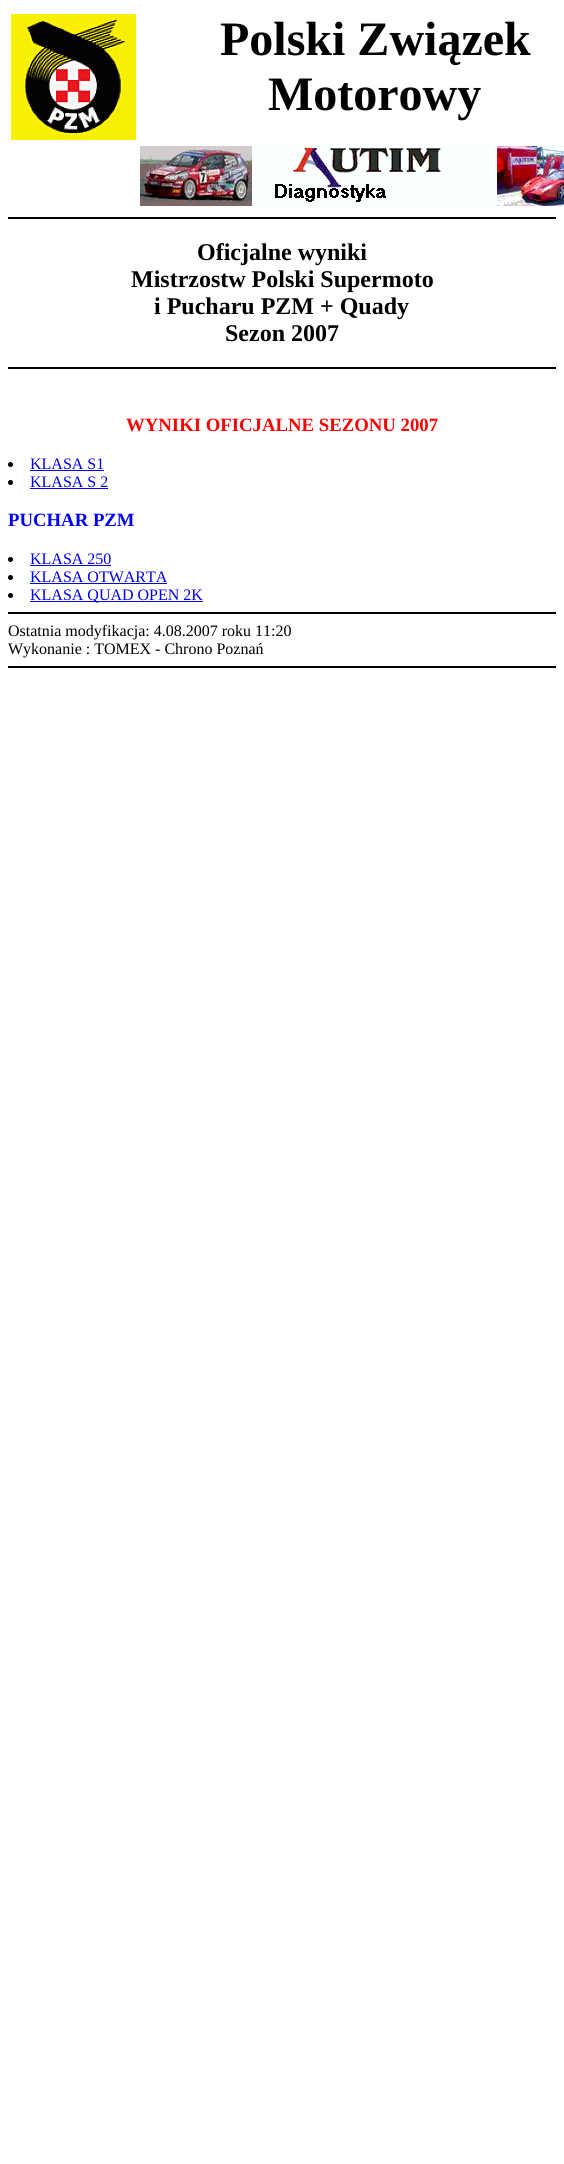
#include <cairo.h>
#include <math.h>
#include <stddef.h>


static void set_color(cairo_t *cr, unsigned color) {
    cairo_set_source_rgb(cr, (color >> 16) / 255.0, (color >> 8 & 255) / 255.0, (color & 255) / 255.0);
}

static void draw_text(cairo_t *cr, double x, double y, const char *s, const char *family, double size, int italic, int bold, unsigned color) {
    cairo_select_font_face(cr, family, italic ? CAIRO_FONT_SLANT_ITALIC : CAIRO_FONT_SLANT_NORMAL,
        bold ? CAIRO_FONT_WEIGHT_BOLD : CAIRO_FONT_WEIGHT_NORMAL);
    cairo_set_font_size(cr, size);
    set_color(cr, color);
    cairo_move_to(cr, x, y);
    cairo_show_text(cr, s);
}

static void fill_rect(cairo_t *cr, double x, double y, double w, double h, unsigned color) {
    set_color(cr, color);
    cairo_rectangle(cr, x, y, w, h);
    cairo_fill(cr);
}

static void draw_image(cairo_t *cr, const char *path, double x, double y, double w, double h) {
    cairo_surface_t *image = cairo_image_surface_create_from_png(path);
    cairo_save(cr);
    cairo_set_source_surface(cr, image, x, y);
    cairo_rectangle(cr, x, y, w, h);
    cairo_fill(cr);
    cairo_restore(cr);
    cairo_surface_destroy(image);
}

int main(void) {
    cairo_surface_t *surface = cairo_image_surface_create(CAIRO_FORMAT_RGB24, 564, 2164);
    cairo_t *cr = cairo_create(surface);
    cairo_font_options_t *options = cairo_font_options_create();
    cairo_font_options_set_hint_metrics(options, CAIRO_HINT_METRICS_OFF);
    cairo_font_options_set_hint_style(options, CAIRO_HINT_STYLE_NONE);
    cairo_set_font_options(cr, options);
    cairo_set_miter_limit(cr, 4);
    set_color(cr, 0xFFFFFF);
    cairo_paint(cr);
    draw_image(cr, "assets/img1.png", 11, 14, 125, 126);
    draw_text(cr, 220, 55, "Polski Związek", "Liberation Serif", 48, 0, 1, 0x000000);
    draw_text(cr, 268, 110, "Motorowy", "Liberation Serif", 48, 0, 1, 0x000000);
    draw_image(cr, "assets/img2.png", 140, 146, 424, 60);
    fill_rect(cr, 8, 217, 548, 2, 0x000000);
    draw_text(cr, 197, 260, "Oficjalne wyniki", "Liberation Serif", 24, 0, 1, 0x000000);
    draw_text(cr, 131, 287, "Mistrzostw Polski Supermoto", "Liberation Serif", 24, 0, 1, 0x000000);
    draw_text(cr, 154, 314, "i Pucharu PZM + Quady", "Liberation Serif", 24, 0, 1, 0x000000);
    draw_text(cr, 225, 341, "Sezon 2007", "Liberation Serif", 24, 0, 1, 0x000000);
    fill_rect(cr, 8, 367, 548, 2, 0x000000);
    draw_text(cr, 126, 431, "WYNIKI OFICJALNE SEZONU 2007", "Liberation Serif", 18.75, 0, 1, 0xFF0000);
    set_color(cr, 0x000000);
    cairo_new_path(cr);
    cairo_arc(cr, 10.5, 464.5, 2.5, 0, 2 * M_PI);
    cairo_fill(cr);
    draw_text(cr, 30, 469, "KLASA S1", "Liberation Serif", 16, 0, 0, 0x0000EE);
    fill_rect(cr, 30, 470, 74, 1, 0x0000EE);
    set_color(cr, 0x000000);
    cairo_new_path(cr);
    cairo_arc(cr, 10.5, 482.5, 2.5, 0, 2 * M_PI);
    cairo_fill(cr);
    draw_text(cr, 30, 487, "KLASA S 2", "Liberation Serif", 16, 0, 0, 0x0000EE);
    fill_rect(cr, 30, 488, 78, 1, 0x0000EE);
    draw_text(cr, 8, 526, "PUCHAR PZM", "Liberation Serif", 18.75, 0, 1, 0x0000FF);
    set_color(cr, 0x000000);
    cairo_new_path(cr);
    cairo_arc(cr, 10.5, 559.5, 2.5, 0, 2 * M_PI);
    cairo_fill(cr);
    draw_text(cr, 30, 564, "KLASA 250", "Liberation Serif", 16, 0, 0, 0x0000EE);
    fill_rect(cr, 30, 565, 81, 1, 0x0000EE);
    set_color(cr, 0x000000);
    cairo_new_path(cr);
    cairo_arc(cr, 10.5, 577.5, 2.5, 0, 2 * M_PI);
    cairo_fill(cr);
    draw_text(cr, 30, 582, "KLASA OTWARTA", "Liberation Serif", 16, 0, 0, 0x0000EE);
    fill_rect(cr, 30, 583, 137, 1, 0x0000EE);
    set_color(cr, 0x000000);
    cairo_new_path(cr);
    cairo_arc(cr, 10.5, 595.5, 2.5, 0, 2 * M_PI);
    cairo_fill(cr);
    fill_rect(cr, 30, 601, 173, 1, 0x0000EE);
    draw_text(cr, 30, 600, "KLASA QUAD OPEN 2K", "Liberation Serif", 16, 0, 0, 0x0000EE);
    fill_rect(cr, 8, 612, 548, 2, 0x000000);
    draw_text(cr, 8, 636, "Ostatnia modyfikacja: 4.08.2007 roku 11:20", "Liberation Serif", 16, 0, 0, 0x000000);
    draw_text(cr, 8, 654, "Wykonanie : TOMEX - Chrono Poznań", "Liberation Serif", 16, 0, 0, 0x000000);
    fill_rect(cr, 8, 666, 548, 2, 0x000000);
    cairo_surface_write_to_png(surface, "output.png");
    cairo_font_options_destroy(options);
    cairo_destroy(cr);
    cairo_surface_destroy(surface);
    return 0;
}
